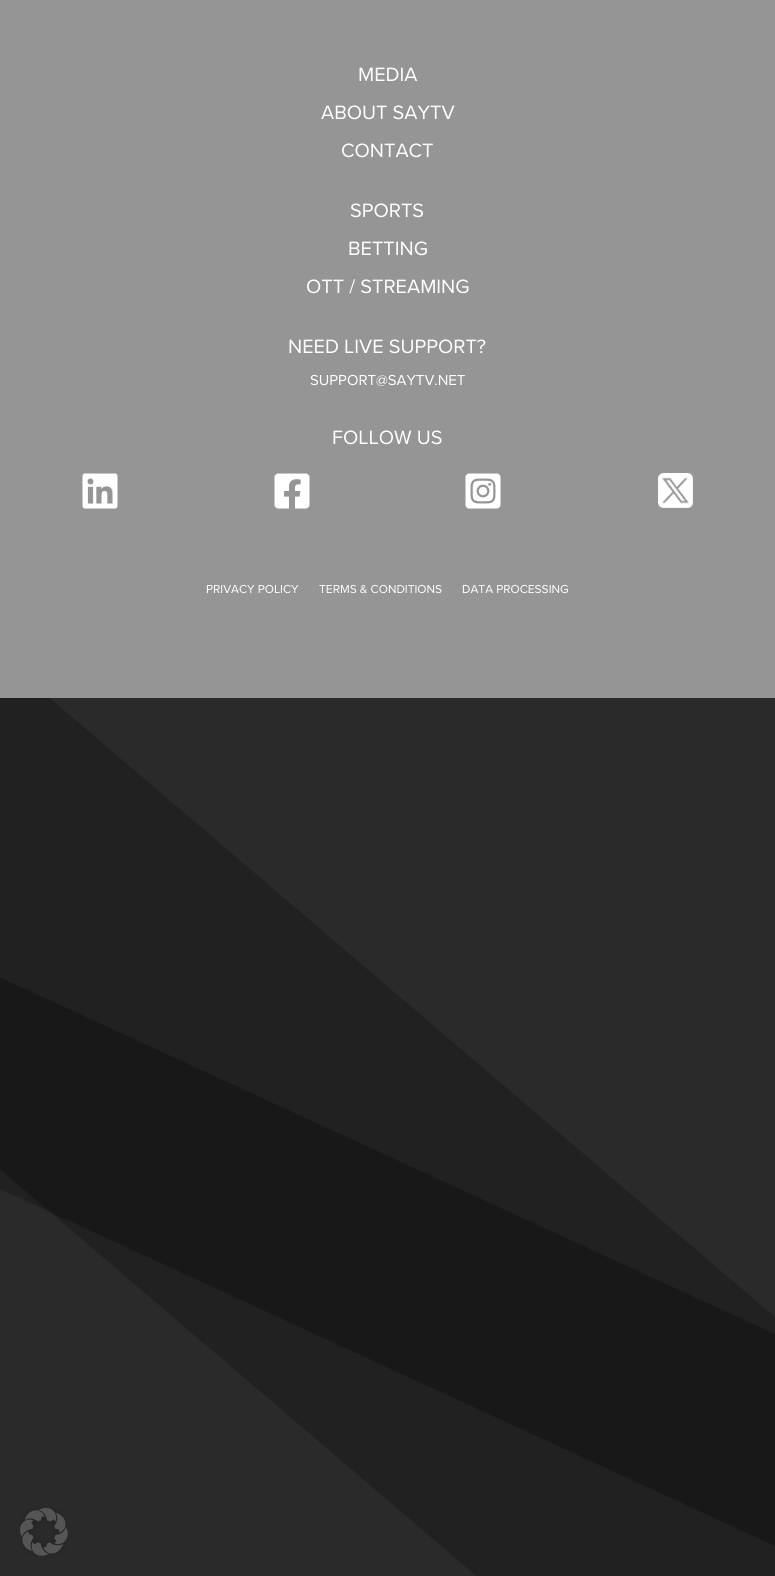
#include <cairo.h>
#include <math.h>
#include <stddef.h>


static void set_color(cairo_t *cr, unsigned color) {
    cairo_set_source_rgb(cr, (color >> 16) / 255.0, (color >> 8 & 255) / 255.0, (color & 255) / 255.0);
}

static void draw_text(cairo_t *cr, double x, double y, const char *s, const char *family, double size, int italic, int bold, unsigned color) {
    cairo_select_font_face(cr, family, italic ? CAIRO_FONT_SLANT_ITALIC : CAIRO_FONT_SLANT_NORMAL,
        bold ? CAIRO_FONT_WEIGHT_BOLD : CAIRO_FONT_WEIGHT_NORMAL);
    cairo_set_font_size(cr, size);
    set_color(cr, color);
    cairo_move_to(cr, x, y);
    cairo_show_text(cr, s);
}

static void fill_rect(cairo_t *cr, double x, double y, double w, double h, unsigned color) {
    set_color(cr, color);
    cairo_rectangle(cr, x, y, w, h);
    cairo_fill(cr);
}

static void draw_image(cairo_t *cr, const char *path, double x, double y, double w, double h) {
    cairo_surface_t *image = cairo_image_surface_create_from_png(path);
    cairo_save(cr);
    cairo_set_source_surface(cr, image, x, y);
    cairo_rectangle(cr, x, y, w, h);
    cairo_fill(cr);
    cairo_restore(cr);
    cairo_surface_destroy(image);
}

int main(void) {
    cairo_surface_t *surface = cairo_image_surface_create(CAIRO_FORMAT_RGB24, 775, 1576);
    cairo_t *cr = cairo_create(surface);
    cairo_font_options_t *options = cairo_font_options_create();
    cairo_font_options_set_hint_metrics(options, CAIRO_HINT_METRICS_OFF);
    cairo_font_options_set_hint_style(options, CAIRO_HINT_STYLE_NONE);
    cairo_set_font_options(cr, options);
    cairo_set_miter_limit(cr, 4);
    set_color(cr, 0xFFFFFF);
    cairo_paint(cr);
    draw_image(cr, "assets/img1.png", 0, 698, 775, 878);
    fill_rect(cr, 0, 0, 775, 698, 0x959595);
    draw_text(cr, 358, 81, "MEDIA", "Proxima Nova", 20, 0, 0, 0xFFFFFF);
    draw_text(cr, 321, 119, "ABOUT SAYTV", "Proxima Nova", 20, 0, 0, 0xFFFFFF);
    draw_text(cr, 341, 157, "CONTACT", "Proxima Nova", 20, 0, 0, 0xFFFFFF);
    draw_text(cr, 350, 217, "SPORTS", "Proxima Nova", 20, 0, 0, 0xFFFFFF);
    draw_text(cr, 348, 255, "BETTING", "Proxima Nova", 20, 0, 0, 0xFFFFFF);
    draw_text(cr, 306, 293, "OTT / STREAMING", "Proxima Nova", 20, 0, 0, 0xFFFFFF);
    draw_text(cr, 288, 353, "NEED LIVE SUPPORT?", "Proxima Nova", 20, 0, 0, 0xFFFFFF);
    draw_text(cr, 310, 385, "SUPPORT@SAYTV.NET", "Proxima Nova", 15, 0, 0, 0xFFFFFF);
    draw_text(cr, 332, 444, "FOLLOW US", "Proxima Nova", 20, 0, 0, 0xFFFFFF);
    draw_image(cr, "assets/img2.png", 82, 473, 36, 36);
    draw_image(cr, "assets/img3.png", 274, 473, 36, 36);
    draw_image(cr, "assets/img4.png", 465, 473, 36, 36);
    draw_image(cr, "assets/img5.png", 658, 473, 35, 35);
    draw_text(cr, 206, 593, "PRIVACY POLICY", "Proxima Nova", 12, 0, 0, 0xFFFFFF);
    draw_text(cr, 319, 593, "TERMS & CONDITIONS", "Proxima Nova", 12, 0, 0, 0xFFFFFF);
    draw_text(cr, 462, 593, "DATA PROCESSING", "Proxima Nova", 12, 0, 0, 0xFFFFFF);
    draw_image(cr, "assets/img6.png", 20, 1508, 48, 48);
    cairo_surface_write_to_png(surface, "output.png");
    cairo_font_options_destroy(options);
    cairo_destroy(cr);
    cairo_surface_destroy(surface);
    return 0;
}
